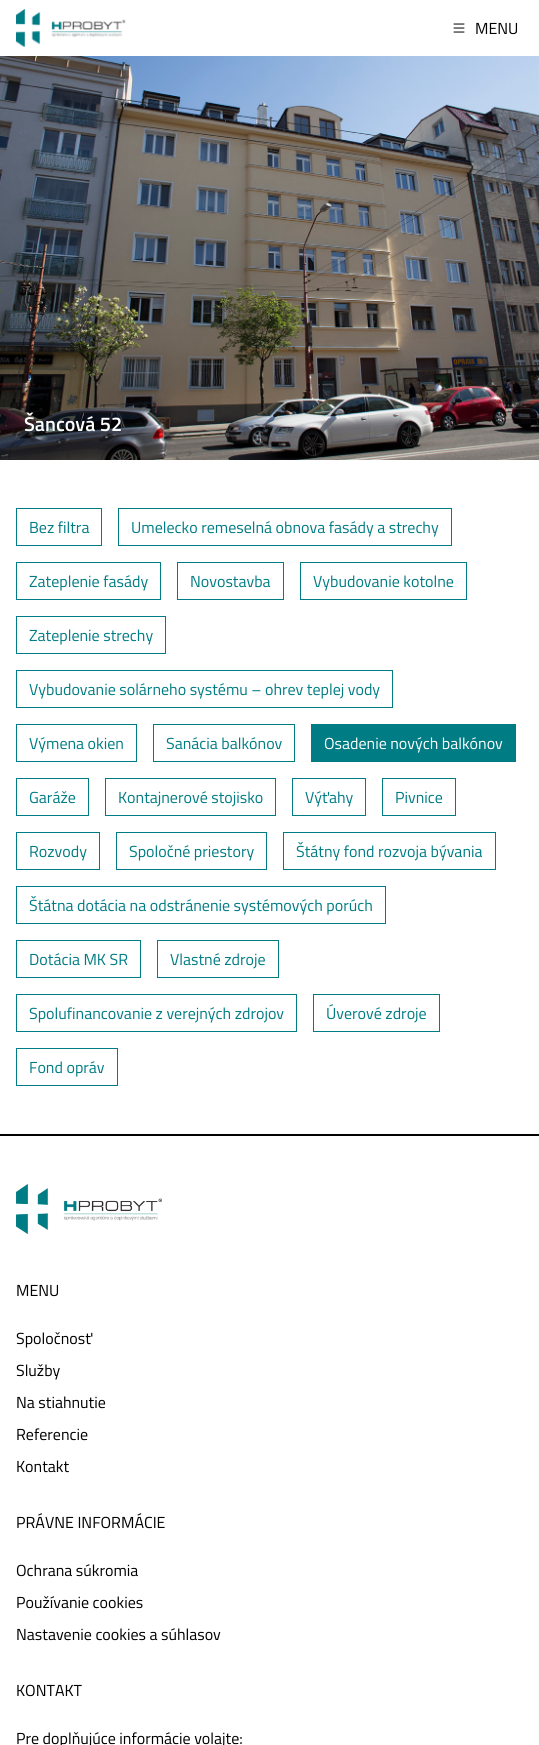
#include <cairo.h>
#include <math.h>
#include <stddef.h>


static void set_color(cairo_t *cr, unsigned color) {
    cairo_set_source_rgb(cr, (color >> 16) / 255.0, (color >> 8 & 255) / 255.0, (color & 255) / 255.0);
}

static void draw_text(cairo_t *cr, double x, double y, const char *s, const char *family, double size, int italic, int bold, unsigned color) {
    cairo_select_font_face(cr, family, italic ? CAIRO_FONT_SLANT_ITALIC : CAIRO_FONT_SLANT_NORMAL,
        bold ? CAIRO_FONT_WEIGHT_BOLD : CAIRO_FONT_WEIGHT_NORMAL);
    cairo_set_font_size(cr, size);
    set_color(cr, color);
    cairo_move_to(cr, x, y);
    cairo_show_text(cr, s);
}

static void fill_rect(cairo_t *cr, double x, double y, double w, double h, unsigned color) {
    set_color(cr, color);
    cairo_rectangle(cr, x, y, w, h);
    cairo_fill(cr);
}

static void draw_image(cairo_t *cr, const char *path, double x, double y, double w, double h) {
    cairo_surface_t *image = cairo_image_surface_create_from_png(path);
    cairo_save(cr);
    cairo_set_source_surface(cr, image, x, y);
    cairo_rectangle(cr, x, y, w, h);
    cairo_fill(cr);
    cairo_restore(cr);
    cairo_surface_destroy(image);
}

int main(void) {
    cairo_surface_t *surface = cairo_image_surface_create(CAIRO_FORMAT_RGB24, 539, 1745);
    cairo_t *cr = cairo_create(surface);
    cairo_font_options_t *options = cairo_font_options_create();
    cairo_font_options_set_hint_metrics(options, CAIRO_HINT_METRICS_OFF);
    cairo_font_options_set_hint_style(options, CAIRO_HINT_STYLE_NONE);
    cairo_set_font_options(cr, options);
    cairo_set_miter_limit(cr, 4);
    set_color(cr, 0xFFFFFF);
    cairo_paint(cr);
    draw_image(cr, "assets/img1.png", 16, 9, 110, 38);
    draw_image(cr, "assets/img2.png", 453, 23, 12, 10);
    draw_text(cr, 475, 34, "MENU", "Titillium Web", 16, 0, 0, 0x000000);
    draw_image(cr, "assets/img3.png", 0, 56, 539, 404);
    draw_text(cr, 24, 431, "Šancová 52", "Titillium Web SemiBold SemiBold", 20, 0, 0, 0xFFFFFF);
    cairo_rectangle(cr, 16.5, 508.5, 85, 37);
    set_color(cr, 0x007C84);
    cairo_set_line_width(cr, 1);
    cairo_stroke(cr);
    draw_text(cr, 29, 533, "Bez filtra", "Titillium Web", 16, 0, 0, 0x007C84);
    cairo_rectangle(cr, 118.5, 508.5, 333, 37);
    cairo_stroke(cr);
    draw_text(cr, 131, 533, "Umelecko remeselná obnova fasády a strechy", "Titillium Web", 16, 0, 0, 0x007C84);
    cairo_rectangle(cr, 16.5, 562.5, 144, 37);
    cairo_stroke(cr);
    draw_text(cr, 29, 587, "Zateplenie fasády", "Titillium Web", 16, 0, 0, 0x007C84);
    cairo_rectangle(cr, 177.5, 562.5, 106, 37);
    cairo_stroke(cr);
    draw_text(cr, 190, 587, "Novostavba", "Titillium Web", 16, 0, 0, 0x007C84);
    cairo_rectangle(cr, 300.5, 562.5, 166, 37);
    cairo_stroke(cr);
    draw_text(cr, 313, 587, "Vybudovanie kotolne", "Titillium Web", 16, 0, 0, 0x007C84);
    cairo_rectangle(cr, 16.5, 616.5, 149, 37);
    cairo_stroke(cr);
    draw_text(cr, 29, 641, "Zateplenie strechy", "Titillium Web", 16, 0, 0, 0x007C84);
    cairo_rectangle(cr, 16.5, 670.5, 376, 37);
    cairo_stroke(cr);
    draw_text(cr, 29, 695, "Vybudovanie solárneho systému – ohrev teplej vody", "Titillium Web", 16, 0, 0, 0x007C84);
    cairo_rectangle(cr, 16.5, 724.5, 120, 37);
    cairo_stroke(cr);
    draw_text(cr, 29, 749, "Výmena okien", "Titillium Web", 16, 0, 0, 0x007C84);
    cairo_rectangle(cr, 153.5, 724.5, 141, 37);
    cairo_stroke(cr);
    draw_text(cr, 166, 749, "Sanácia balkónov", "Titillium Web", 16, 0, 0, 0x007C84);
    fill_rect(cr, 311, 724, 205, 38, 0x007C84);
    draw_text(cr, 324, 749, "Osadenie nových balkónov", "Titillium Web", 16, 0, 0, 0xFFFFFF);
    cairo_rectangle(cr, 16.5, 778.5, 72, 37);
    set_color(cr, 0x007C84);
    cairo_stroke(cr);
    draw_text(cr, 29, 803, "Garáže", "Titillium Web", 16, 0, 0, 0x007C84);
    cairo_rectangle(cr, 105.5, 778.5, 170, 37);
    cairo_stroke(cr);
    draw_text(cr, 118, 803, "Kontajnerové stojisko", "Titillium Web", 16, 0, 0, 0x007C84);
    cairo_rectangle(cr, 292.5, 778.5, 73, 37);
    cairo_stroke(cr);
    draw_text(cr, 305, 803, "Výťahy", "Titillium Web", 16, 0, 0, 0x007C84);
    cairo_rectangle(cr, 382.5, 778.5, 73, 37);
    cairo_stroke(cr);
    draw_text(cr, 395, 803, "Pivnice", "Titillium Web", 16, 0, 0, 0x007C84);
    cairo_rectangle(cr, 16.5, 832.5, 83, 37);
    cairo_stroke(cr);
    draw_text(cr, 29, 857, "Rozvody", "Titillium Web", 16, 0, 0, 0x007C84);
    cairo_rectangle(cr, 116.5, 832.5, 150, 37);
    cairo_stroke(cr);
    draw_text(cr, 129, 857, "Spoločné priestory", "Titillium Web", 16, 0, 0, 0x007C84);
    cairo_rectangle(cr, 283.5, 832.5, 212, 37);
    cairo_stroke(cr);
    draw_text(cr, 296, 857, "Štátny fond rozvoja bývania", "Titillium Web", 16, 0, 0, 0x007C84);
    cairo_rectangle(cr, 16.5, 886.5, 369, 37);
    cairo_stroke(cr);
    draw_text(cr, 29, 911, "Štátna dotácia na odstránenie systémových porúch", "Titillium Web", 16, 0, 0, 0x007C84);
    cairo_rectangle(cr, 16.5, 940.5, 124, 37);
    cairo_stroke(cr);
    draw_text(cr, 29, 965, "Dotácia MK SR", "Titillium Web", 16, 0, 0, 0x007C84);
    cairo_rectangle(cr, 157.5, 940.5, 121, 37);
    cairo_stroke(cr);
    draw_text(cr, 170, 965, "Vlastné zdroje", "Titillium Web", 16, 0, 0, 0x007C84);
    cairo_rectangle(cr, 16.5, 994.5, 280, 37);
    cairo_stroke(cr);
    draw_text(cr, 29, 1019, "Spolufinancovanie z verejných zdrojov", "Titillium Web", 16, 0, 0, 0x007C84);
    cairo_rectangle(cr, 313.5, 994.5, 126, 37);
    cairo_stroke(cr);
    draw_text(cr, 326, 1019, "Úverové zdroje", "Titillium Web", 16, 0, 0, 0x007C84);
    cairo_rectangle(cr, 16.5, 1048.5, 101, 37);
    cairo_stroke(cr);
    draw_text(cr, 29, 1073, "Fond opráv", "Titillium Web", 16, 0, 0, 0x007C84);
    fill_rect(cr, 0, 1134, 539, 2, 0x000000);
    draw_image(cr, "assets/img4.png", 16, 1184, 146, 50);
    draw_text(cr, 16, 1296, "MENU", "Titillium Web", 16, 0, 0, 0x000000);
    draw_text(cr, 16, 1344, "Spoločnosť", "Titillium Web", 16, 0, 0, 0x000000);
    draw_text(cr, 16, 1376, "Služby", "Titillium Web", 16, 0, 0, 0x000000);
    draw_text(cr, 16, 1408, "Na stiahnutie", "Titillium Web", 16, 0, 0, 0x000000);
    draw_text(cr, 16, 1440, "Referencie", "Titillium Web", 16, 0, 0, 0x000000);
    draw_text(cr, 16, 1472, "Kontakt", "Titillium Web", 16, 0, 0, 0x000000);
    draw_text(cr, 16, 1528, "PRÁVNE INFORMÁCIE", "Titillium Web", 16, 0, 0, 0x000000);
    draw_text(cr, 16, 1576, "Ochrana súkromia", "Titillium Web", 16, 0, 0, 0x000000);
    draw_text(cr, 16, 1608, "Používanie cookies", "Titillium Web", 16, 0, 0, 0x000000);
    draw_text(cr, 16, 1640, "Nastavenie cookies a súhlasov", "Titillium Web", 16, 0, 0, 0x000000);
    draw_text(cr, 16, 1696, "KONTAKT", "Titillium Web", 16, 0, 0, 0x000000);
    draw_text(cr, 16, 1744, "Pre doplňujúce informácie volajte:", "Titillium Web", 16, 0, 0, 0x000000);
    cairo_surface_write_to_png(surface, "output.png");
    cairo_font_options_destroy(options);
    cairo_destroy(cr);
    cairo_surface_destroy(surface);
    return 0;
}
